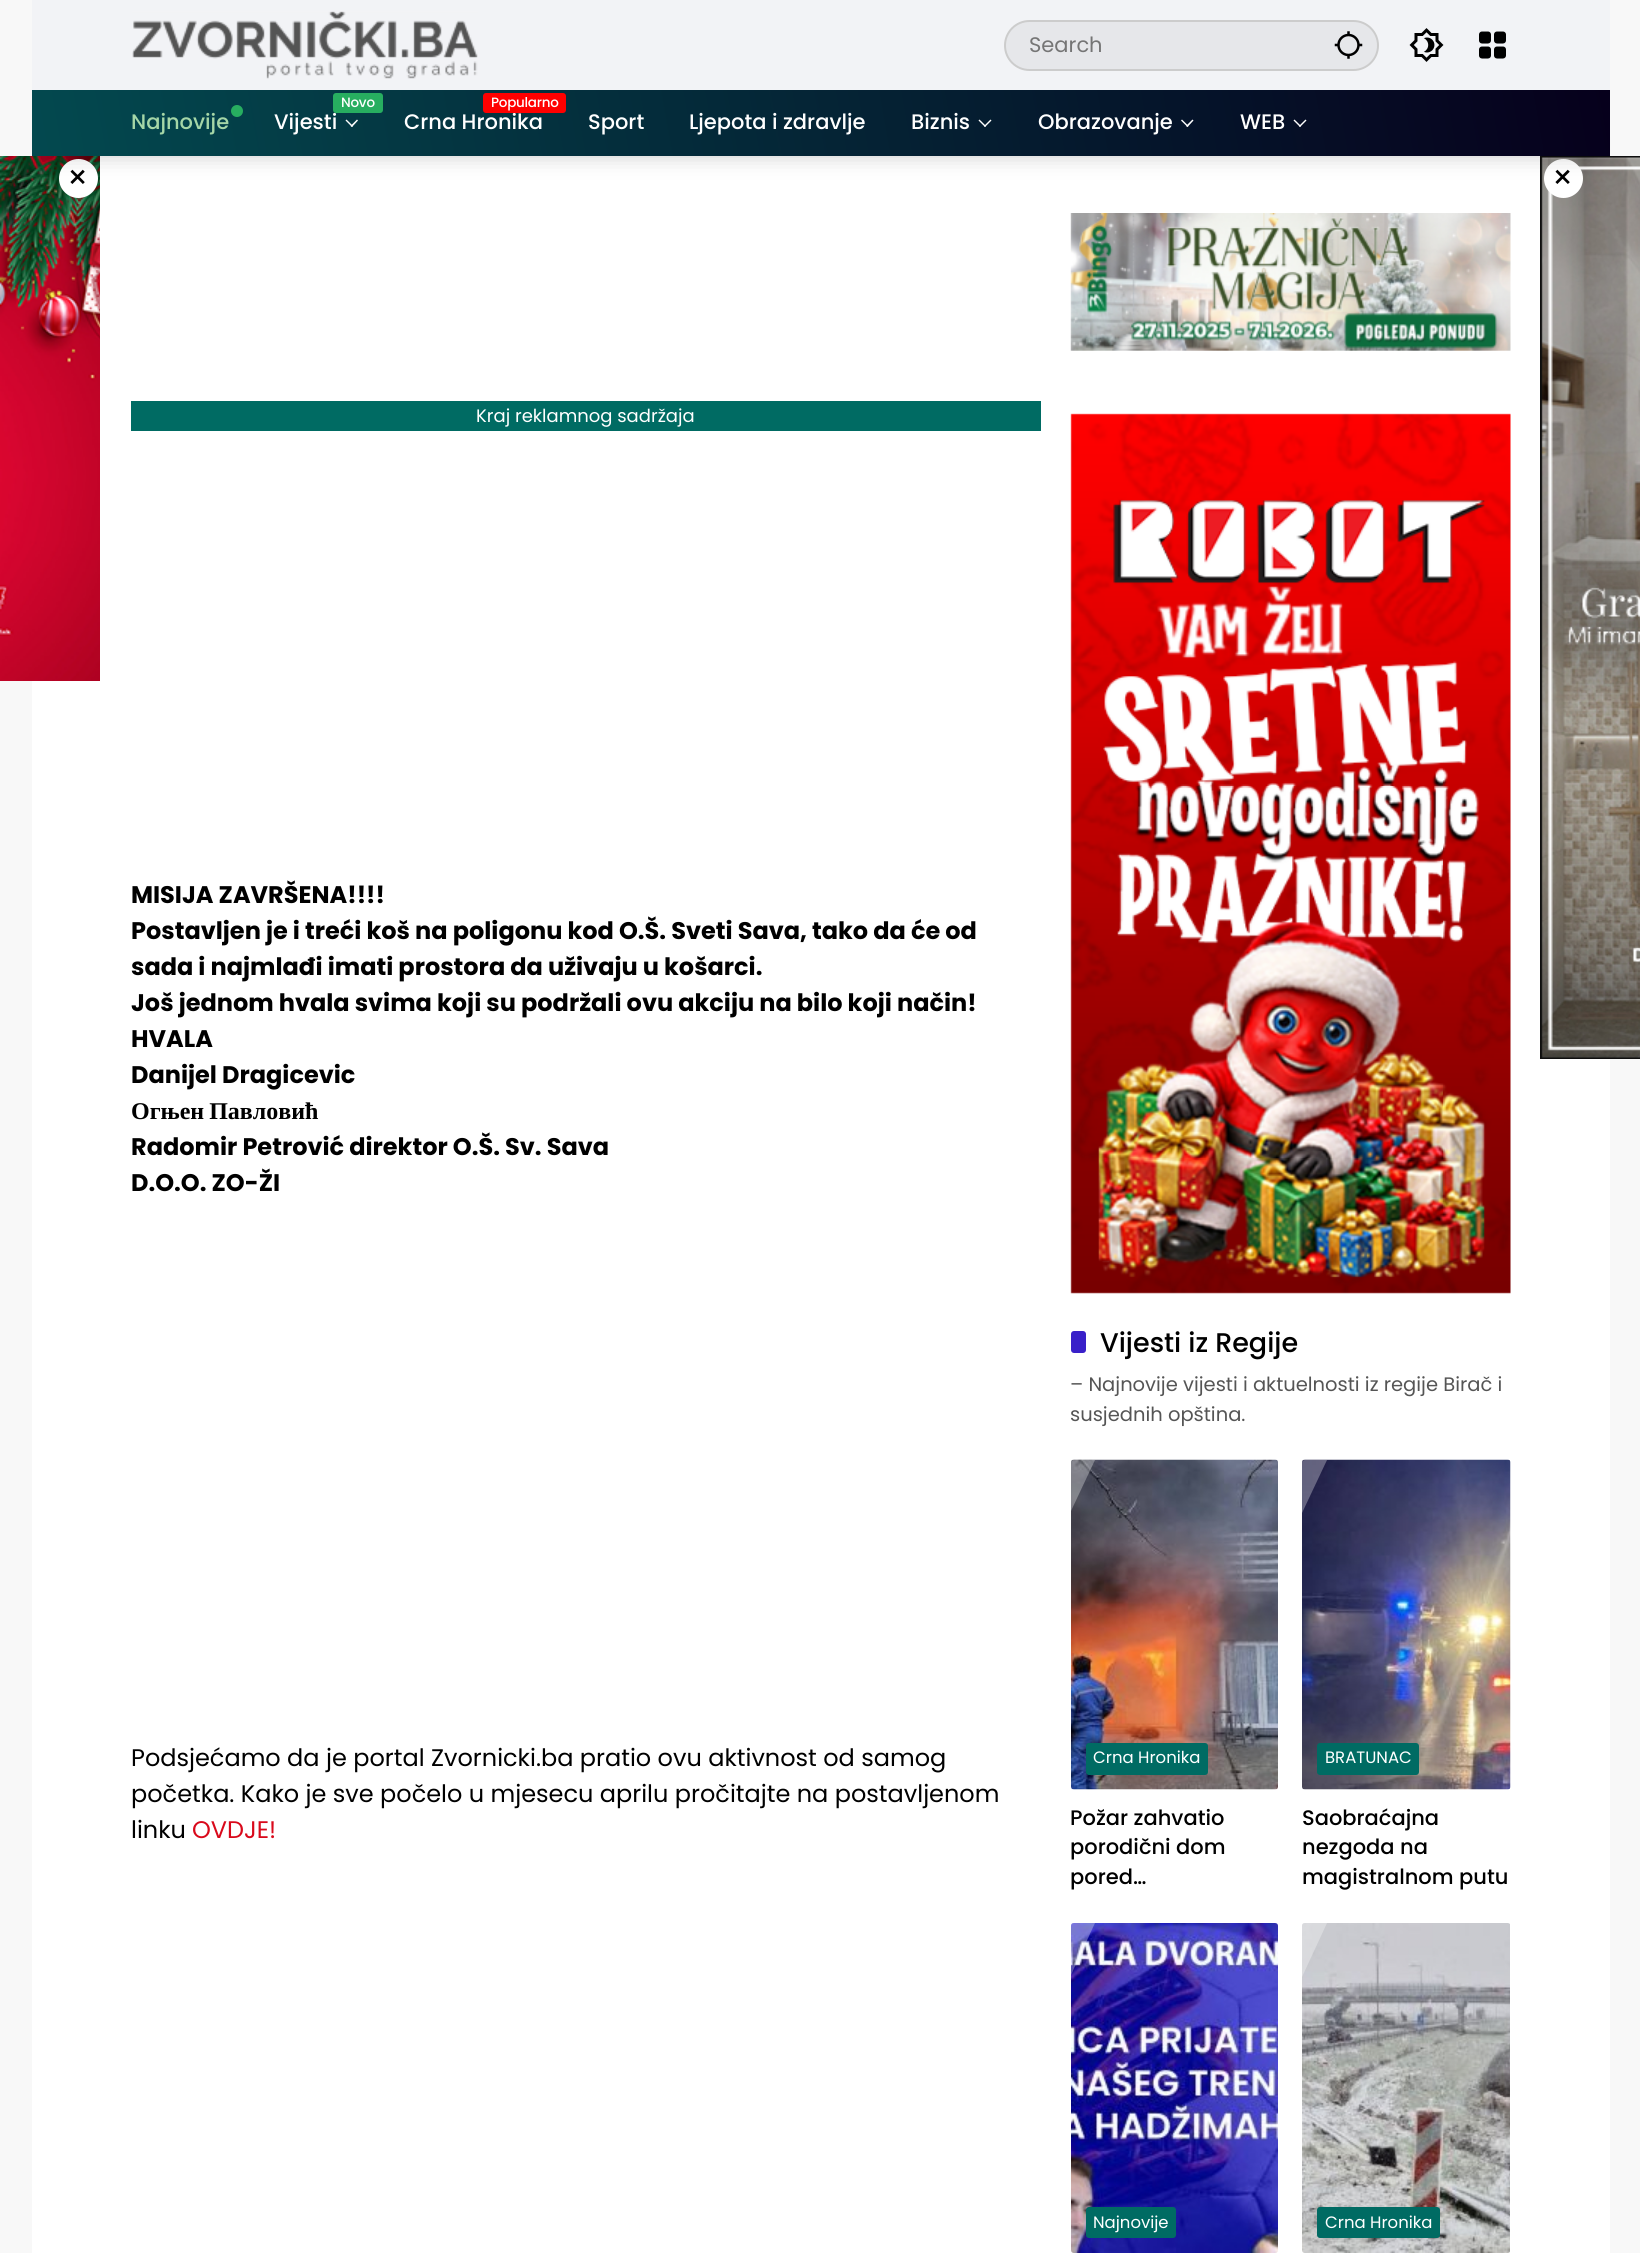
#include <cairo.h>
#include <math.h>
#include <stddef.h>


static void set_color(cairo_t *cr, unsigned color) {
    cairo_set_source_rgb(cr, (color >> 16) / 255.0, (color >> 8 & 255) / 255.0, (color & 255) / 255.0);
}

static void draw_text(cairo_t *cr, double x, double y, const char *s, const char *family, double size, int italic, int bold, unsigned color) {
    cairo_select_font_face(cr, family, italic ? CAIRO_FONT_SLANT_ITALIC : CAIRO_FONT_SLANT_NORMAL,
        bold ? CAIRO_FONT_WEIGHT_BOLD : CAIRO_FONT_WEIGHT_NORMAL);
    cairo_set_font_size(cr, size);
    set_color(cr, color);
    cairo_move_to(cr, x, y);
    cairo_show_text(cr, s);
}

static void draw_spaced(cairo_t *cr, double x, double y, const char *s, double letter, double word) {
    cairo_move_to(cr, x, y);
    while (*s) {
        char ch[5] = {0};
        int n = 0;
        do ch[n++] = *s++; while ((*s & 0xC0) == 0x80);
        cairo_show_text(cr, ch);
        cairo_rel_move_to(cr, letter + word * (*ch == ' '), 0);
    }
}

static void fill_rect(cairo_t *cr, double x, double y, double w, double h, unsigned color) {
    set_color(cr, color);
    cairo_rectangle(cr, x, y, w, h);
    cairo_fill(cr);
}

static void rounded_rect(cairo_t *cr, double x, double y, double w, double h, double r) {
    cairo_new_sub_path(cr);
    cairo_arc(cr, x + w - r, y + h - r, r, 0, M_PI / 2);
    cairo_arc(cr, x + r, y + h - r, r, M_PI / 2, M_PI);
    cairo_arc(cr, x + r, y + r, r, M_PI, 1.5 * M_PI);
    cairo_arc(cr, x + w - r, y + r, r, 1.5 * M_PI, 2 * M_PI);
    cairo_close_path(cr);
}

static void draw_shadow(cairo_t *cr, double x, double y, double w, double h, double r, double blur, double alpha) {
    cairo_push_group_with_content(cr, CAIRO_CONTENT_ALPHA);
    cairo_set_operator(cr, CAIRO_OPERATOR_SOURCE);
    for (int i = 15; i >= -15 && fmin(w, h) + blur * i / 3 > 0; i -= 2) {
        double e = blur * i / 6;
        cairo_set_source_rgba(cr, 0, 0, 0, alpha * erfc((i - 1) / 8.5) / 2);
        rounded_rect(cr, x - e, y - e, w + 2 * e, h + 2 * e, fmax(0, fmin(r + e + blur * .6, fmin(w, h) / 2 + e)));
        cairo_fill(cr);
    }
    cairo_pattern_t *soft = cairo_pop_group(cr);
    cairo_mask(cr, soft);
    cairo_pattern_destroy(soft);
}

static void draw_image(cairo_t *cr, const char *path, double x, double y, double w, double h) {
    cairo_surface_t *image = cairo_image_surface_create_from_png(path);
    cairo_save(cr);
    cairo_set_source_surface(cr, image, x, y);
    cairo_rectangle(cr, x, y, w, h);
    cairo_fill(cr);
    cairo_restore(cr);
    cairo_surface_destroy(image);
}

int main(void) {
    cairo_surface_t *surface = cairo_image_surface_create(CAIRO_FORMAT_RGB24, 1640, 2253);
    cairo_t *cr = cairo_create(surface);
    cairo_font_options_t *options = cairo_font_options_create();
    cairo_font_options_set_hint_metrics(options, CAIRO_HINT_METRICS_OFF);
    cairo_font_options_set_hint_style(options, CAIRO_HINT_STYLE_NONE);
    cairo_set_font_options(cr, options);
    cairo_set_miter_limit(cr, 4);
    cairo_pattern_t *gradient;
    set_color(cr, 0xF8F8F8);
    cairo_paint(cr);
    fill_rect(cr, 32, 156, 1578, 2097, 0xFFFFFF);
    fill_rect(cr, 32, 0, 1578, 90, 0xF2F3F6);
    draw_image(cr, "assets/img1.png", 132, 11, 346, 68);
    set_color(cr, 0xE6E7EA);
    rounded_rect(cr, 1005, 21, 373, 49, 24.5);
    cairo_fill_preserve(cr);
    set_color(cr, 0xCCCCCC);
    cairo_stroke(cr);
    draw_text(cr, 1029, 52, "Search", "Poppins", 21, 0, 0, 0x757575);
    draw_image(cr, "assets/img2.png", 1334, 31, 29, 28);
    draw_image(cr, "assets/img3.png", 1409, 28, 35, 34);
    draw_image(cr, "assets/img4.png", 1479, 31, 27, 28);
    draw_image(cr, "assets/img5.png", 0, 156, 100, 525);
    set_color(cr, 0xFFFFFF);
    cairo_arc(cr, 78.5, 178.5, 19.5, 0, 2 * M_PI);
    cairo_fill(cr);
    draw_image(cr, "assets/img6.png", 1540, 156, 100, 903);
    cairo_arc(cr, 1563.5, 178.5, 19.5, 0, 2 * M_PI);
    cairo_fill(cr);
    set_color(cr, 0x000000);
    draw_shadow(cr, 54, 135, 1533, 21, 0, 11, 0.2);
    gradient = cairo_pattern_create_linear(50, 259, 1591, -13);
    cairo_pattern_add_color_stop_rgba(gradient, 0, 0.012, 0.286, 0.31, 1);
    cairo_pattern_add_color_stop_rgba(gradient, 1, 0.024, 0, 0.11, 1);
    cairo_set_source(cr, gradient);
    cairo_pattern_destroy(gradient);
    cairo_rectangle(cr, 32, 90, 1578, 66);
    cairo_fill(cr);
    draw_text(cr, 131, 129, "Najnovije", "Poppins Medium", 21, 0, 0, 0xA5D6A7);
    set_color(cr, 0x27AE60);
    cairo_new_path(cr);
    cairo_arc(cr, 237, 111, 6, 0, 2 * M_PI);
    cairo_fill(cr);
    draw_text(cr, 274, 129, "Vijesti", "Poppins Medium", 21, 0, 0, 0xFFFFFF);
    set_color(cr, 0x27AE60);
    rounded_rect(cr, 333, 93, 50, 20, 3);
    cairo_fill(cr);
    cairo_set_font_size(cr, 13.5);
    set_color(cr, 0xFFFFFF);
    draw_spaced(cr, 341, 107, "Novo", -0.25, 0);
    cairo_new_path(cr);
    cairo_move_to(cr, 357, 119.5);
    cairo_line_to(cr, 358, 120.5);
    cairo_line_to(cr, 352, 127);
    cairo_line_to(cr, 350.5, 126);
    cairo_close_path(cr);
    cairo_fill(cr);
    cairo_new_path(cr);
    cairo_move_to(cr, 346.5, 119.5);
    cairo_line_to(cr, 353, 126);
    cairo_line_to(cr, 352, 127);
    cairo_line_to(cr, 345.5, 120.5);
    cairo_close_path(cr);
    cairo_fill(cr);
    draw_text(cr, 404, 129, "Crna Hronika", "Poppins Medium", 21, 0, 0, 0xFFFFFF);
    set_color(cr, 0xFF0000);
    rounded_rect(cr, 483, 93, 83, 20, 3);
    cairo_fill(cr);
    cairo_set_font_size(cr, 13.5);
    set_color(cr, 0xFFFFFF);
    draw_spaced(cr, 491, 107, "Popularno", -0.25, 0);
    draw_text(cr, 588, 129, "Sport", "Poppins Medium", 21, 0, 0, 0xFFFFFF);
    draw_text(cr, 689, 129, "Ljepota i zdravlje", "Poppins Medium", 21, 0, 0, 0xFFFFFF);
    draw_text(cr, 911, 129, "Biznis", "Poppins Medium", 21, 0, 0, 0xFFFFFF);
    cairo_new_path(cr);
    cairo_move_to(cr, 990.5, 119.5);
    cairo_line_to(cr, 991.5, 120.5);
    cairo_line_to(cr, 985, 127);
    cairo_line_to(cr, 984, 126);
    cairo_close_path(cr);
    cairo_fill(cr);
    cairo_new_path(cr);
    cairo_move_to(cr, 979.5, 119.5);
    cairo_line_to(cr, 986, 126);
    cairo_line_to(cr, 985, 127);
    cairo_line_to(cr, 978.5, 120.5);
    cairo_close_path(cr);
    cairo_fill(cr);
    draw_text(cr, 1038, 129, "Obrazovanje", "Poppins Medium", 21, 0, 0, 0xFFFFFF);
    cairo_new_path(cr);
    cairo_move_to(cr, 1192.5, 119.5);
    cairo_line_to(cr, 1193.5, 120.5);
    cairo_line_to(cr, 1187.5, 127);
    cairo_line_to(cr, 1186, 126);
    cairo_close_path(cr);
    cairo_fill(cr);
    cairo_new_path(cr);
    cairo_move_to(cr, 1182, 119.5);
    cairo_line_to(cr, 1188.5, 126);
    cairo_line_to(cr, 1187.5, 127);
    cairo_line_to(cr, 1181, 120.5);
    cairo_close_path(cr);
    cairo_fill(cr);
    draw_text(cr, 1240, 129, "WEB", "Poppins Medium", 21, 0, 0, 0xFFFFFF);
    cairo_new_path(cr);
    cairo_move_to(cr, 1305.5, 119.5);
    cairo_line_to(cr, 1306.5, 120.5);
    cairo_line_to(cr, 1300, 127);
    cairo_line_to(cr, 1299, 126);
    cairo_close_path(cr);
    cairo_fill(cr);
    cairo_new_path(cr);
    cairo_move_to(cr, 1294.5, 119.5);
    cairo_line_to(cr, 1301, 126);
    cairo_line_to(cr, 1300, 127);
    cairo_line_to(cr, 1293.5, 120.5);
    cairo_close_path(cr);
    cairo_fill(cr);
    draw_text(cr, 67, 189, "×", "Poppins", 33, 0, 0, 0x000000);
    draw_text(cr, 1552, 189, "×", "Poppins", 33, 0, 0, 0x000000);
    fill_rect(cr, 131, 401, 910, 30, 0x006B63);
    draw_text(cr, 476, 422, "Kraj reklamnog sadržaja", "Poppins", 18, 0, 0, 0xFFFFFF);
    draw_text(cr, 131, 903, "MISIJA ZAVRŠENA!!!!", "Poppins", 24, 0, 1, 0x000000);
    draw_text(cr, 131, 939, "Postavljen je i treći koš na poligonu kod O.Š. Sveti Sava, tako da će od", "Poppins", 24, 0, 1, 0x000000);
    draw_text(cr, 131, 975, "sada i najmlađi imati prostora da uživaju u košarci.", "Poppins", 24, 0, 1, 0x000000);
    draw_text(cr, 131, 1011, "Još jednom hvala svima koji su podržali ovu akciju na bilo koji način!", "Poppins", 24, 0, 1, 0x000000);
    draw_text(cr, 131, 1047, "HVALA", "Poppins", 24, 0, 1, 0x000000);
    draw_text(cr, 131, 1083, "Danijel Dragicevic", "Poppins", 24, 0, 1, 0x000000);
    cairo_select_font_face(cr, "Liberation Serif", CAIRO_FONT_SLANT_NORMAL, CAIRO_FONT_WEIGHT_BOLD);
    draw_spaced(cr, 131, 1119, "Огњен Павловић", 0, -1);
    draw_text(cr, 131, 1155, "Radomir Petrović direktor O.Š. Sv. Sava", "Poppins", 24, 0, 1, 0x000000);
    draw_text(cr, 131, 1191, "D.O.O. ZO-ŽI", "Poppins", 24, 0, 1, 0x000000);
    draw_text(cr, 131, 1766, "Podsjećamo da je portal Zvornicki.ba pratio ovu aktivnost od samog", "Poppins", 24, 0, 0, 0x000000);
    draw_text(cr, 131, 1802, "početka. Kako je sve počelo u mjesecu aprilu pročitajte na postavljenom", "Poppins", 24, 0, 0, 0x000000);
    draw_text(cr, 131, 1838, "linku", "Poppins", 24, 0, 0, 0x000000);
    draw_text(cr, 192, 1838, "OVDJE!", "Poppins", 24, 0, 0, 0xD9091B);
    draw_image(cr, "assets/img7.png", 1070, 213, 441, 138);
    draw_image(cr, "assets/img8.png", 1070, 413, 441, 881);
    set_color(cr, 0x3920C9);
    rounded_rect(cr, 1071, 1331, 15, 22, 3);
    cairo_fill(cr);
    draw_text(cr, 1100, 1352, "Vijesti iz Regije", "Poppins Medium", 27, 0, 0, 0x000000);
    draw_text(cr, 1070, 1391, "– Najnovije vijesti i aktuelnosti iz regije Birač i", "Poppins", 19.5, 0, 0, 0x555555);
    draw_text(cr, 1070, 1421, "susjednih opština.", "Poppins", 19.5, 0, 0, 0x555555);
    draw_image(cr, "assets/img9.png", 1071, 1459, 207, 331);
    gradient = cairo_pattern_create_linear(915, 1624, 1019, 1624);
    cairo_pattern_add_color_stop_rgba(gradient, 0, 1, 1, 1, 0);
    cairo_pattern_add_color_stop_rgba(gradient, 1, 1, 1, 1, 0.3);
    cairo_set_source(cr, gradient);
    cairo_pattern_destroy(gradient);
    cairo_new_path(cr);
    cairo_move_to(cr, 1074, 1460);
    cairo_line_to(cr, 1095, 1460);
    cairo_line_to(cr, 1071, 1511);
    cairo_line_to(cr, 1071, 1463);
    cairo_curve_to(cr, 1071, 1461, 1072, 1460, 1074, 1460);
    cairo_close_path(cr);
    cairo_fill(cr);
    set_color(cr, 0x006B63);
    rounded_rect(cr, 1086, 1743, 122, 32, 3);
    cairo_fill(cr);
    draw_text(cr, 1093, 1763, "Crna Hronika", "Poppins", 16.5, 0, 0, 0xFFFFFF);
    draw_text(cr, 1070, 1825, "Požar zahvatio", "Poppins Medium", 21, 0, 0, 0x000000);
    draw_text(cr, 1070, 1854, "porodični dom", "Poppins Medium", 21, 0, 0, 0x000000);
    draw_text(cr, 1070, 1884, "pored…", "Poppins Medium", 21, 0, 0, 0x000000);
    draw_image(cr, "assets/img10.png", 1302, 1459, 209, 331);
    gradient = cairo_pattern_create_linear(1146, 1624, 1250, 1624);
    cairo_pattern_add_color_stop_rgba(gradient, 0, 1, 1, 1, 0);
    cairo_pattern_add_color_stop_rgba(gradient, 1, 1, 1, 1, 0.3);
    cairo_set_source(cr, gradient);
    cairo_pattern_destroy(gradient);
    cairo_new_path(cr);
    cairo_move_to(cr, 1305, 1460);
    cairo_line_to(cr, 1327, 1460);
    cairo_line_to(cr, 1302, 1513);
    cairo_line_to(cr, 1302, 1463);
    cairo_curve_to(cr, 1302, 1461, 1303, 1460, 1305, 1460);
    cairo_close_path(cr);
    cairo_fill(cr);
    set_color(cr, 0x006B63);
    rounded_rect(cr, 1317, 1743, 102, 32, 3);
    cairo_fill(cr);
    draw_text(cr, 1325, 1763, "BRATUNAC", "Poppins", 16.5, 0, 0, 0xFFFFFF);
    draw_text(cr, 1302, 1825, "Saobraćajna", "Poppins Medium", 21, 0, 0, 0x000000);
    draw_text(cr, 1302, 1854, "nezgoda na", "Poppins Medium", 21, 0, 0, 0x000000);
    draw_text(cr, 1302, 1884, "magistralnom putu", "Poppins Medium", 21, 0, 0, 0x000000);
    draw_image(cr, "assets/img11.png", 1071, 1923, 207, 330);
    gradient = cairo_pattern_create_linear(915, 2088, 1019, 2088);
    cairo_pattern_add_color_stop_rgba(gradient, 0, 1, 1, 1, 0);
    cairo_pattern_add_color_stop_rgba(gradient, 1, 1, 1, 1, 0.3);
    cairo_set_source(cr, gradient);
    cairo_pattern_destroy(gradient);
    cairo_new_path(cr);
    cairo_move_to(cr, 1074, 1923);
    cairo_curve_to(cr, 1072, 1923, 1071, 1924, 1071, 1926);
    cairo_line_to(cr, 1071, 1975);
    cairo_line_to(cr, 1095, 1923);
    cairo_close_path(cr);
    cairo_fill(cr);
    set_color(cr, 0x006B63);
    rounded_rect(cr, 1086, 2207, 90, 31, 3);
    cairo_fill(cr);
    draw_text(cr, 1093, 2228, "Najnovije", "Poppins", 16.5, 0, 0, 0xFFFFFF);
    draw_image(cr, "assets/img12.png", 1302, 1923, 208, 330);
    gradient = cairo_pattern_create_linear(1146, 2088, 1250, 2088);
    cairo_pattern_add_color_stop_rgba(gradient, 0, 1, 1, 1, 0);
    cairo_pattern_add_color_stop_rgba(gradient, 1, 1, 1, 1, 0.3);
    cairo_set_source(cr, gradient);
    cairo_pattern_destroy(gradient);
    cairo_new_path(cr);
    cairo_move_to(cr, 1305, 1923);
    cairo_curve_to(cr, 1303, 1923, 1302, 1924, 1302, 1926);
    cairo_line_to(cr, 1302, 1977);
    cairo_line_to(cr, 1327, 1923);
    cairo_close_path(cr);
    cairo_fill(cr);
    set_color(cr, 0x006B63);
    rounded_rect(cr, 1317, 2207, 123, 31, 3);
    cairo_fill(cr);
    draw_text(cr, 1325, 2228, "Crna Hronika", "Poppins", 16.5, 0, 0, 0xFFFFFF);
    cairo_surface_write_to_png(surface, "output.png");
    cairo_font_options_destroy(options);
    cairo_destroy(cr);
    cairo_surface_destroy(surface);
    return 0;
}
